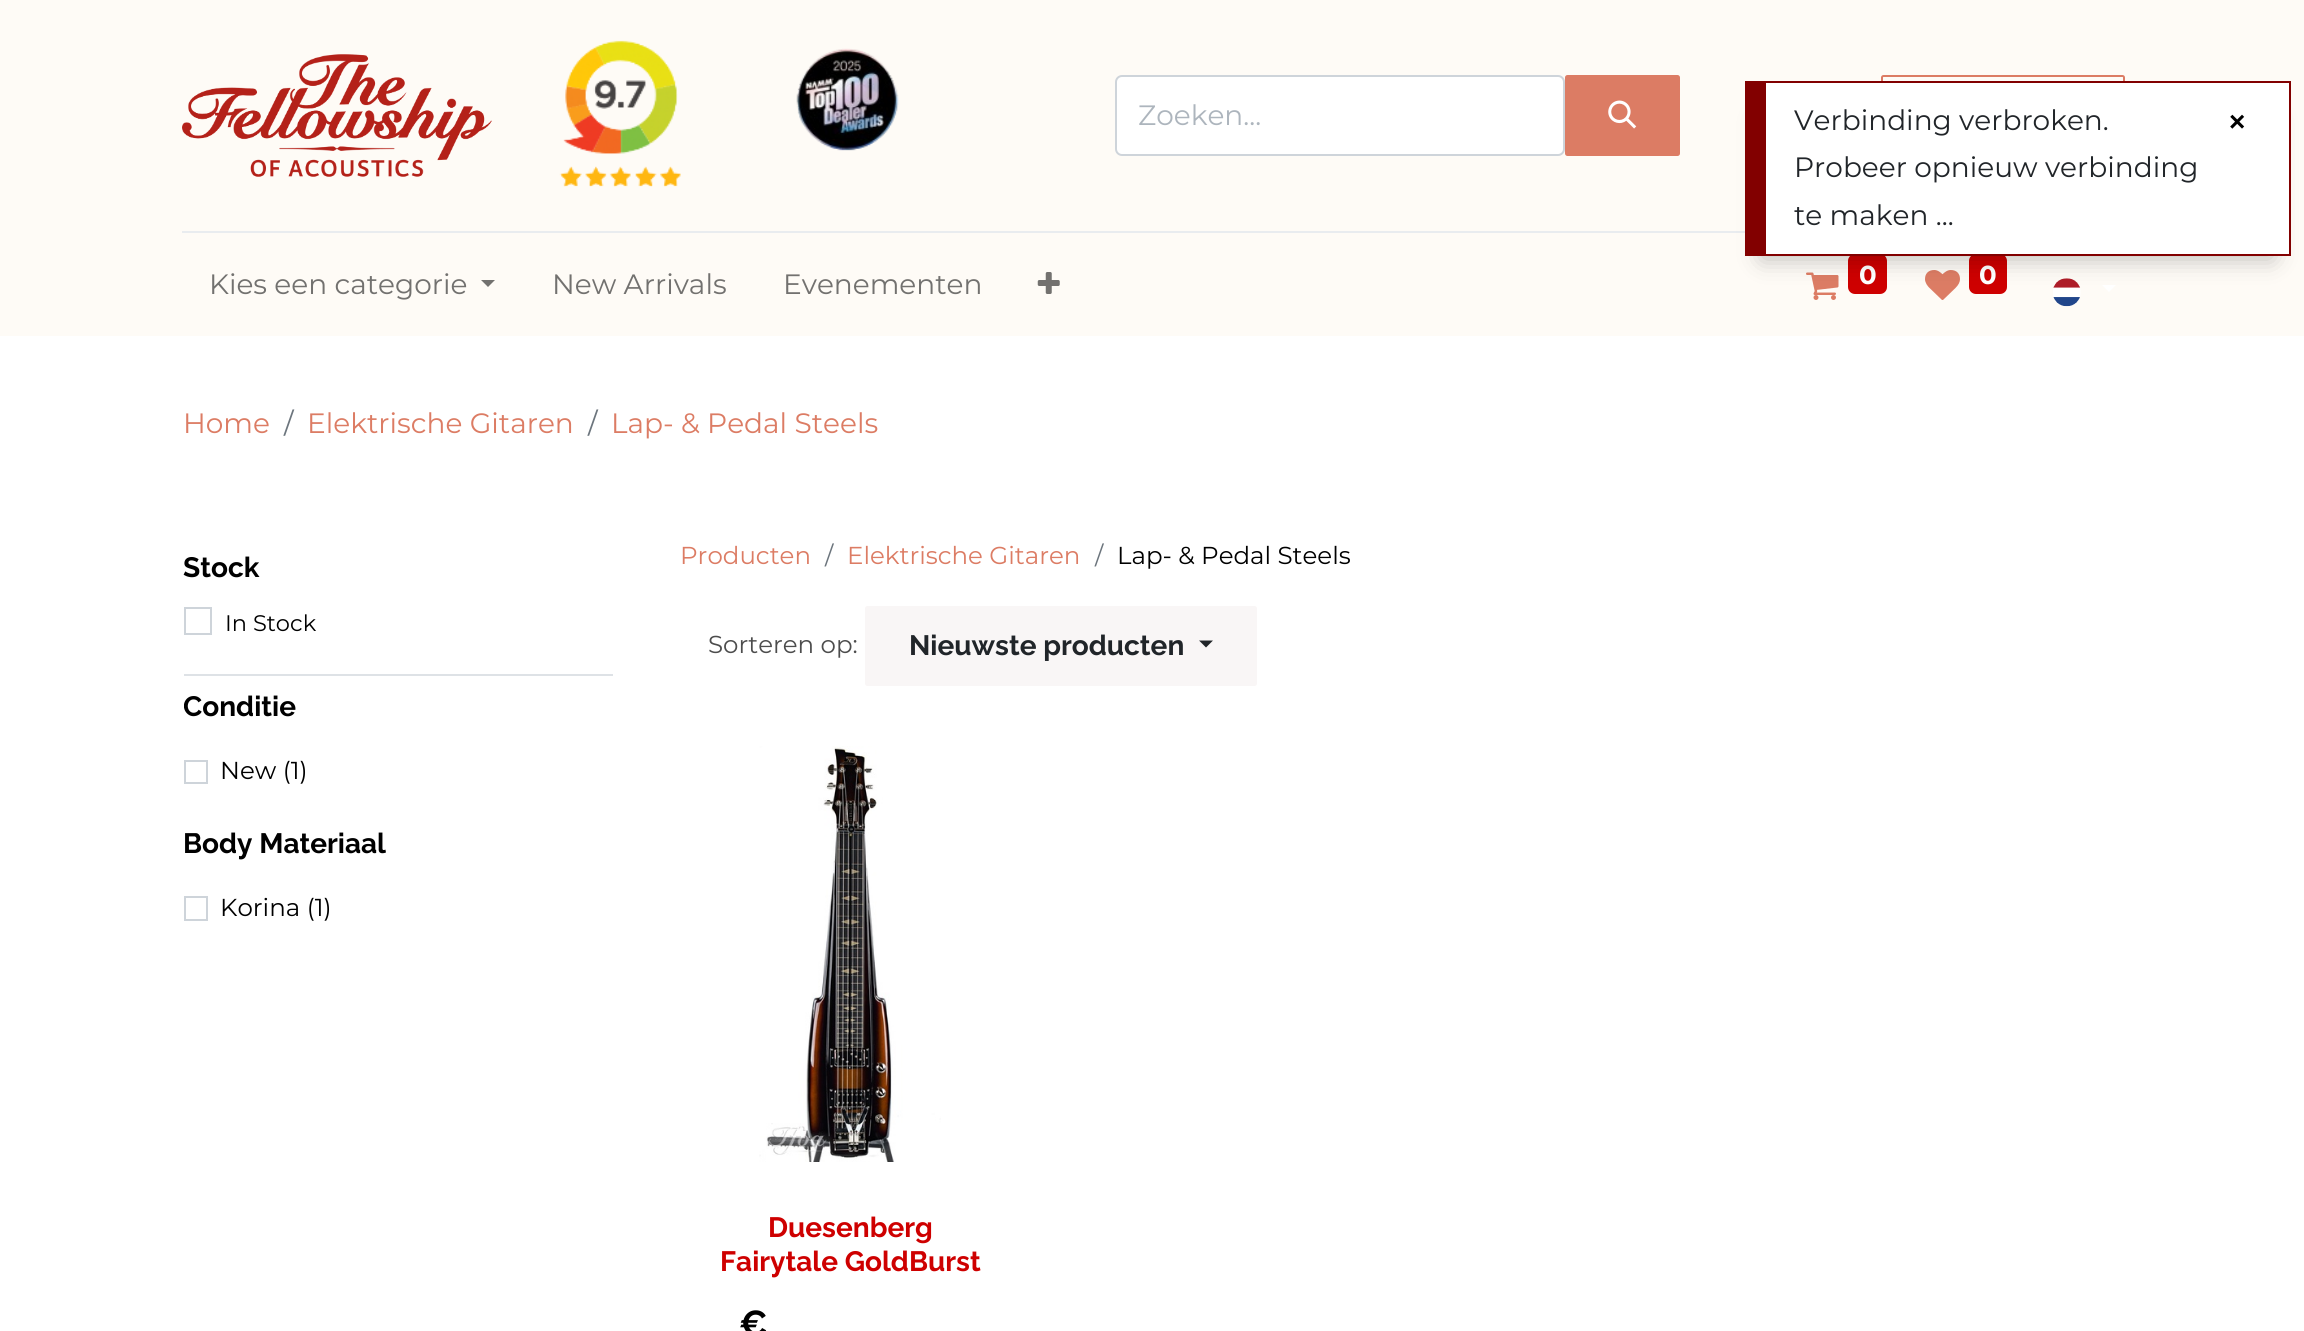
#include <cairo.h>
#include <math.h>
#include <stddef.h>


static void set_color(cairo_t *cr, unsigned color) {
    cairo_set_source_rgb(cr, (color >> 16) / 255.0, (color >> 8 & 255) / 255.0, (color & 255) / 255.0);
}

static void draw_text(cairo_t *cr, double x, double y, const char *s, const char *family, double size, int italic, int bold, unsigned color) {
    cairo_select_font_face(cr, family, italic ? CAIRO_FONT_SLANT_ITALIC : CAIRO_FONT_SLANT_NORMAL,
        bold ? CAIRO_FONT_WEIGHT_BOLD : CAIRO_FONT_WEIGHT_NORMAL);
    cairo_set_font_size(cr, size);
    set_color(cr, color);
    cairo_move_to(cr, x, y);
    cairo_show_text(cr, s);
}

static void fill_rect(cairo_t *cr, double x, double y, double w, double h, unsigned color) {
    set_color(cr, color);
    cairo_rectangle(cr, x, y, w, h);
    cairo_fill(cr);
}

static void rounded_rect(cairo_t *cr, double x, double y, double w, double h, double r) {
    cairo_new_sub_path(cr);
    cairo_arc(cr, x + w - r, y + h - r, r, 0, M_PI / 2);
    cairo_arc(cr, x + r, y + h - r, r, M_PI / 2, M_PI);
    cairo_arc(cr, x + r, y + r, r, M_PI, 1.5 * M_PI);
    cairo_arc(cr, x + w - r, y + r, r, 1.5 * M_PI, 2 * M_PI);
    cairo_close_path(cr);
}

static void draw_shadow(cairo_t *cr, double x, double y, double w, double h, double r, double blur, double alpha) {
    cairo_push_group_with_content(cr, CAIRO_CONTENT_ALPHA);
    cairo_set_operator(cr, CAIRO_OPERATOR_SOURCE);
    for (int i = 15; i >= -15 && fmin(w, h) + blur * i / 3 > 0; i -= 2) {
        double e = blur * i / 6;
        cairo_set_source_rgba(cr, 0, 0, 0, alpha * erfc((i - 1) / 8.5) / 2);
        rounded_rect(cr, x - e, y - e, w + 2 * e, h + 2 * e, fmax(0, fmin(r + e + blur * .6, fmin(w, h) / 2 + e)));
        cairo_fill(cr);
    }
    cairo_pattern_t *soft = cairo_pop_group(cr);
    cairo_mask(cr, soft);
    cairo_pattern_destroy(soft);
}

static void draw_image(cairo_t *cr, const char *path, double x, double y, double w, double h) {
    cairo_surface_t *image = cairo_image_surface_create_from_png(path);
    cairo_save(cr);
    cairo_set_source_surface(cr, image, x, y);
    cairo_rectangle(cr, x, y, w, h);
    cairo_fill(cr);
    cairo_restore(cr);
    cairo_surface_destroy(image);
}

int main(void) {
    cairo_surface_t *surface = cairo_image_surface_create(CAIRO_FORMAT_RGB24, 2304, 1331);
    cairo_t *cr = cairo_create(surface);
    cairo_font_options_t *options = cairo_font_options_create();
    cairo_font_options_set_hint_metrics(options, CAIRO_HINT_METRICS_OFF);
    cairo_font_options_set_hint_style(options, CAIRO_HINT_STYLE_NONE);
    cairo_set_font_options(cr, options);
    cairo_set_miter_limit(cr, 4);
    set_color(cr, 0xFFFFFF);
    cairo_paint(cr);
    fill_rect(cr, 0, 0, 2304, 336, 0xFEFBF6);
    draw_image(cr, "assets/img1.png", 182, 54, 310, 123);
    draw_image(cr, "assets/img2.png", 559, 40, 122, 147);
    draw_image(cr, "assets/img3.png", 796, 48, 103, 103);
    set_color(cr, 0xFFFFFF);
    rounded_rect(cr, 1116, 76, 448, 79, 6);
    cairo_fill_preserve(cr);
    set_color(cr, 0xCED4DA);
    cairo_stroke(cr);
    draw_text(cr, 1138, 125, "Zoeken...", "Montserrat", 28, 0, 0, 0xADB5BD);
    set_color(cr, 0xDC7C64);
    rounded_rect(cr, 1566, 76, 113, 79, 1.5);
    cairo_fill_preserve(cr);
    cairo_stroke(cr);
    draw_image(cr, "assets/img4.png", 1608, 100, 29, 29);
    rounded_rect(cr, 1882, 76, 242, 79, 1.5);
    cairo_stroke(cr);
    fill_rect(cr, 182, 231, 1563, 2, 0xE9ECEF);
    draw_text(cr, 209, 294, "Kies een categorie", "Montserrat", 28, 0, 0, 0x72716F);
    cairo_new_path(cr);
    cairo_move_to(cr, 481, 280);
    cairo_line_to(cr, 495, 280);
    cairo_line_to(cr, 488, 287);
    cairo_close_path(cr);
    cairo_fill(cr);
    draw_text(cr, 552, 294, "New Arrivals", "Montserrat", 28, 0, 0, 0x72716F);
    draw_text(cr, 783, 294, "Evenementen", "Montserrat", 28, 0, 0, 0x72716F);
    draw_image(cr, "assets/img5.png", 1037, 272, 23, 22);
    draw_image(cr, "assets/img6.png", 1806, 272, 33, 28);
    set_color(cr, 0xCE0000);
    rounded_rect(cr, 1848, 254, 39, 40, 7);
    cairo_fill(cr);
    draw_text(cr, 1859, 284, "0", "Montserrat", 26, 0, 1, 0xFFFFFF);
    draw_image(cr, "assets/img7.png", 1925, 270, 35, 30);
    set_color(cr, 0xCE0000);
    rounded_rect(cr, 1969, 254, 38, 40, 7);
    cairo_fill(cr);
    draw_text(cr, 1979, 284, "0", "Montserrat", 26, 0, 1, 0xFFFFFF);
    draw_image(cr, "assets/img8.png", 2053, 278, 28, 29);
    cairo_new_path(cr);
    cairo_move_to(cr, 2102, 285);
    cairo_line_to(cr, 2116, 285);
    cairo_line_to(cr, 2109, 292);
    cairo_close_path(cr);
    cairo_fill(cr);
    draw_text(cr, 183, 433, "Home", "Montserrat", 28, 0, 0, 0xDC7C64);
    draw_text(cr, 284, 433, "/", "Montserrat", 28, 0, 0, 0x6C757D);
    draw_text(cr, 307, 433, "Elektrische Gitaren", "Montserrat", 28, 0, 0, 0xDC7C64);
    draw_text(cr, 588, 433, "/", "Montserrat", 28, 0, 0, 0x6C757D);
    draw_text(cr, 611, 433, "Lap- & Pedal Steels", "Montserrat", 28, 0, 0, 0xDC7C64);
    fill_rect(cr, 184, 674, 429, 2, 0xDEE2E6);
    draw_text(cr, 183, 577, "Stock", "Raleway", 28, 0, 1, 0x000000);
    cairo_rectangle(cr, 185, 608, 26, 26);
    set_color(cr, 0xCED4DA);
    cairo_stroke(cr);
    draw_text(cr, 225, 631, "In Stock", "Montserrat", 22.5, 0, 0, 0x000000);
    cairo_save(cr);
    cairo_rectangle(cr, 184, 537, 443, 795);
    cairo_clip(cr);
    draw_text(cr, 183, 716, "Conditie", "Raleway", 28, 0, 1, 0x000000);
    cairo_restore(cr);
    cairo_rectangle(cr, 185, 761, 22, 22);
    set_color(cr, 0xCED4DA);
    cairo_stroke(cr);
    draw_text(cr, 220, 779, "New (1)", "Montserrat", 24.5, 0, 0, 0x000000);
    draw_text(cr, 183, 853, "Body Materiaal", "Raleway", 28, 0, 1, 0x000000);
    cairo_rectangle(cr, 185, 897, 22, 23);
    set_color(cr, 0xCED4DA);
    cairo_stroke(cr);
    draw_text(cr, 220, 916, "Korina (1)", "Montserrat", 24.5, 0, 0, 0x000000);
    draw_text(cr, 680, 564, "Producten", "Montserrat", 24.5, 0, 0, 0xDC7C64);
    draw_text(cr, 825, 564, "/", "Montserrat", 24.5, 0, 0, 0x6C757D);
    draw_text(cr, 847, 564, "Elektrische Gitaren", "Montserrat", 24.5, 0, 0, 0xDC7C64);
    draw_text(cr, 1095, 564, "/", "Montserrat", 24.5, 0, 0, 0x6C757D);
    draw_text(cr, 1117, 564, "Lap- & Pedal Steels", "Montserrat", 24.5, 0, 0, 0x000000);
    draw_text(cr, 708, 653, "Sorteren op:", "Montserrat", 24.5, 0, 0, 0x4D4D4D);
    set_color(cr, 0xF9F6F6);
    rounded_rect(cr, 865, 606, 392, 80, 2.5);
    cairo_fill(cr);
    draw_text(cr, 909, 655, "Nieuwste producten", "Raleway", 28, 0, 1, 0x212529);
    cairo_new_path(cr);
    cairo_move_to(cr, 1199, 640.5);
    cairo_line_to(cr, 1213, 640.5);
    cairo_line_to(cr, 1206, 647.5);
    cairo_close_path(cr);
    cairo_fill(cr);
    draw_image(cr, "assets/img9.png", 759, 746, 182, 416);
    draw_text(cr, 768, 1237, "Duesenberg", "Raleway", 28, 0, 1, 0xCE0000);
    draw_text(cr, 720, 1271, "Fairytale GoldBurst", "Raleway", 28, 0, 1, 0xCE0000);
    draw_text(cr, 739, 1336, "€", "Raleway", 36, 0, 1, 0x000000);
    set_color(cr, 0x000000);
    draw_shadow(cr, 1762, 119, 511, 140, 0, 12, 0.25);
    fill_rect(cr, 1766, 83, 523, 171, 0xFFFFFF);
    fill_rect(cr, 1766, 81, 525, 2, 0x820000);
    fill_rect(cr, 2289, 81, 2, 175, 0x820000);
    fill_rect(cr, 1766, 254, 525, 2, 0x820000);
    fill_rect(cr, 1745, 81, 21, 175, 0x820000);
    draw_text(cr, 1794, 130, "Verbinding verbroken.", "Montserrat", 28, 0, 0, 0x212529);
    draw_text(cr, 1794, 177, "Probeer opnieuw verbinding", "Montserrat", 28, 0, 0, 0x212529);
    draw_text(cr, 1794, 225, "te maken ...", "Montserrat", 28, 0, 0, 0x212529);
    draw_text(cr, 2229, 131, "×", "Liberation Sans", 28, 0, 1, 0x000000);
    cairo_surface_write_to_png(surface, "output.png");
    cairo_font_options_destroy(options);
    cairo_destroy(cr);
    cairo_surface_destroy(surface);
    return 0;
}
